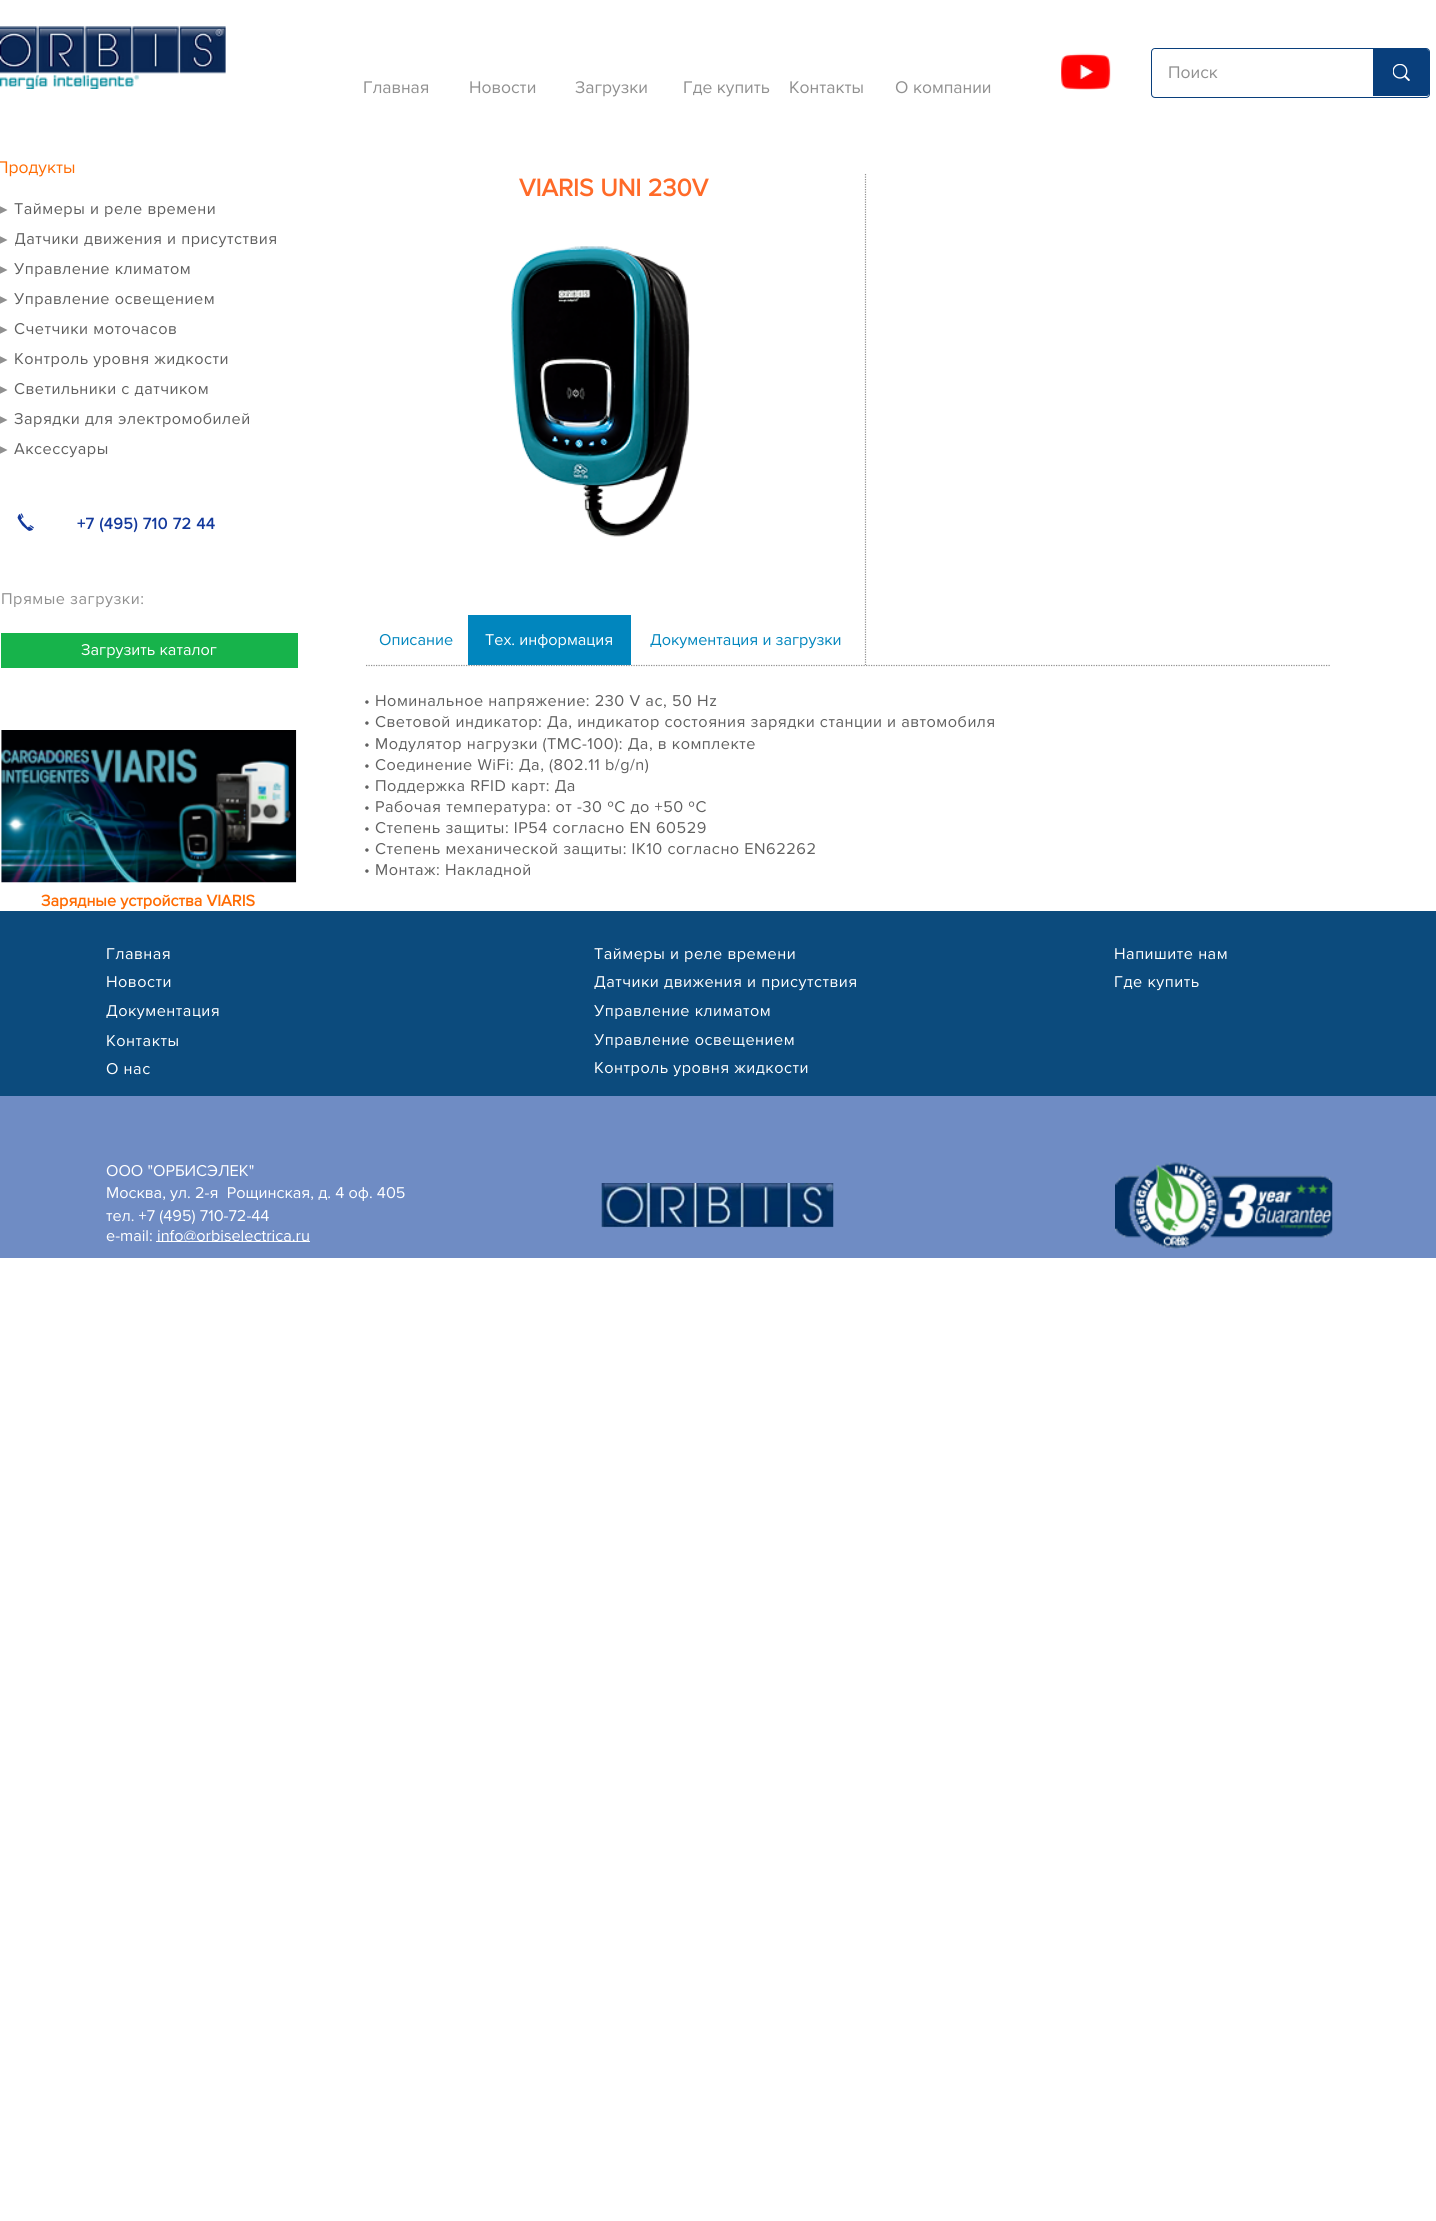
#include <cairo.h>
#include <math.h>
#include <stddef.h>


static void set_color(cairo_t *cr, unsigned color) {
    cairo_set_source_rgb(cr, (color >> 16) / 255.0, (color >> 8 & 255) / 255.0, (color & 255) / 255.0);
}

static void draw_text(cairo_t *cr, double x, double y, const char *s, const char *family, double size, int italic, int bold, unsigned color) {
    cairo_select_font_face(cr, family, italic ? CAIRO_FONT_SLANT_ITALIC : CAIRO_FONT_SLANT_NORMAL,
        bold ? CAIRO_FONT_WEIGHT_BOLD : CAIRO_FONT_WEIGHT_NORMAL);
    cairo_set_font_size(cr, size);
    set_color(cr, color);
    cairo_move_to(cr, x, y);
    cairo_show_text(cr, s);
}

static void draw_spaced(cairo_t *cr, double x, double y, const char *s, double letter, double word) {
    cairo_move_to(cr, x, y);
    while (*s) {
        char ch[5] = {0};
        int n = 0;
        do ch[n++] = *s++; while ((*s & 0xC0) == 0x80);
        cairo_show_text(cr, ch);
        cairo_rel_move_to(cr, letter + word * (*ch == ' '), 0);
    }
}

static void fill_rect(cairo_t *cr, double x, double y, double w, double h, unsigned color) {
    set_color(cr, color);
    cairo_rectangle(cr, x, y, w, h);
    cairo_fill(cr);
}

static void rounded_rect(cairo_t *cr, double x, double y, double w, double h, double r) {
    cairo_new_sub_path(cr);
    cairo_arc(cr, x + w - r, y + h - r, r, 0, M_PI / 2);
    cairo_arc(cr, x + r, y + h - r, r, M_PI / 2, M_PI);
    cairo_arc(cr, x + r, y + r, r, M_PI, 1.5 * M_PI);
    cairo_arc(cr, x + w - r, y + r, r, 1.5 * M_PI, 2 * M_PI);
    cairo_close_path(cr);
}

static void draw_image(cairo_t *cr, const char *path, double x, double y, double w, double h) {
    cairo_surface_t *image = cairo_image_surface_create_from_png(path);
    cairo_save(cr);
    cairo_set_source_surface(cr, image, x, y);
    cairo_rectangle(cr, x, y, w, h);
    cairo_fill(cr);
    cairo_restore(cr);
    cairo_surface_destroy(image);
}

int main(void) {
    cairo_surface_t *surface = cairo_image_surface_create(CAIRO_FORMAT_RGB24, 1436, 2221);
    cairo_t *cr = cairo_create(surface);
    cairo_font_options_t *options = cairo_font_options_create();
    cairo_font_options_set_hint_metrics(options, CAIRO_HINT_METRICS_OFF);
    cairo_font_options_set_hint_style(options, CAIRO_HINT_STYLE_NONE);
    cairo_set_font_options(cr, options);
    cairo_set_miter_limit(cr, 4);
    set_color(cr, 0xFFFFFF);
    cairo_paint(cr);
    draw_image(cr, "assets/img1.png", 0, 26, 226, 63);
    draw_image(cr, "assets/img2.png", 1061, 53, 50, 37);
    rounded_rect(cr, 1151.5, 48.5, 278, 49, 3.5);
    set_color(cr, 0x093F7C);
    cairo_set_line_width(cr, 1);
    cairo_stroke(cr);
    set_color(cr, 0xFFFFFF);
    rounded_rect(cr, 1153, 49, 276, 47, 2.5);
    cairo_fill(cr);
    draw_text(cr, 1168, 78, "Поиск", "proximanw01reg", 17.5, 0, 0, 0x909090);
    set_color(cr, 0x093F7C);
    cairo_new_path(cr);
    cairo_move_to(cr, 1373, 49);
    cairo_line_to(cr, 1426.5, 49);
    cairo_curve_to(cr, 1428, 49, 1429, 50, 1429, 51.5);
    cairo_line_to(cr, 1429, 93.5);
    cairo_curve_to(cr, 1429, 95, 1428, 96, 1426.5, 96);
    cairo_line_to(cr, 1373, 96);
    cairo_close_path(cr);
    cairo_fill(cr);
    draw_image(cr, "assets/img3.png", 1393, 64, 17, 17);
    draw_text(cr, 363, 93, "Главная", "proximanw01reg", 17.5, 0, 0, 0x909090);
    draw_text(cr, 469, 93, "Новости", "proximanw01reg", 17.5, 0, 0, 0x909090);
    draw_text(cr, 575, 93, "Загрузки", "proximanw01reg", 17.5, 0, 0, 0x909090);
    draw_text(cr, 683, 93, "Где купить", "proximanw01reg", 17.5, 0, 0, 0x909090);
    draw_text(cr, 789, 93, "Контакты", "proximanw01reg", 17.5, 0, 0, 0x909090);
    draw_text(cr, 895, 93, "О компании", "proximanw01reg", 17.5, 0, 0, 0x909090);
    draw_text(cr, -4, 173, "Продукты", "proximanw01reg", 17.5, 0, 0, 0xFF6C03);
    set_color(cr, 0x909090);
    cairo_new_path(cr);
    cairo_move_to(cr, -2.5, 205);
    cairo_line_to(cr, 7.5, 210);
    cairo_line_to(cr, -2.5, 215);
    cairo_close_path(cr);
    cairo_move_to(cr, -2.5, 235);
    cairo_line_to(cr, 7.5, 240);
    cairo_line_to(cr, -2.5, 245);
    cairo_close_path(cr);
    cairo_fill(cr);
    cairo_set_font_size(cr, 16.25);
    set_color(cr, 0x606060);
    draw_spaced(cr, 14, 214, "Таймеры и реле времени", 0.5, 0);
    cairo_save(cr);
    cairo_rectangle(cr, 15, 230, 263, 20);
    cairo_clip(cr);
    draw_spaced(cr, 14, 244, "Датчики движения и присутствия", 0.5, 0);
    cairo_restore(cr);
    draw_spaced(cr, 14, 274, "Управление климатом", 0.5, 0);
    draw_spaced(cr, 14, 304, "Управление освещением", 0.5, 0);
    draw_spaced(cr, 14, 334, "Счетчики моточасов", 0.5, 0);
    draw_spaced(cr, 14, 364, "Контроль уровня жидкости", 0.5, 0);
    draw_spaced(cr, 14, 394, "Светильники с датчиком", 0.5, 0);
    draw_spaced(cr, 14, 424, "Зарядки для электромобилей", 0.5, 0);
    draw_spaced(cr, 14, 454, "Аксессуары", 0.5, 0);
    set_color(cr, 0x909090);
    cairo_new_path(cr);
    cairo_move_to(cr, -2.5, 265);
    cairo_line_to(cr, 7.5, 270);
    cairo_line_to(cr, -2.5, 275);
    cairo_close_path(cr);
    cairo_move_to(cr, -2.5, 295);
    cairo_line_to(cr, 7.5, 300);
    cairo_line_to(cr, -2.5, 305);
    cairo_close_path(cr);
    cairo_fill(cr);
    cairo_new_path(cr);
    cairo_move_to(cr, -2.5, 325);
    cairo_line_to(cr, 7.5, 330);
    cairo_line_to(cr, -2.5, 335);
    cairo_close_path(cr);
    cairo_move_to(cr, -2.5, 355);
    cairo_line_to(cr, 7.5, 360);
    cairo_line_to(cr, -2.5, 365);
    cairo_close_path(cr);
    cairo_fill(cr);
    cairo_new_path(cr);
    cairo_move_to(cr, -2.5, 385);
    cairo_line_to(cr, 7.5, 390);
    cairo_line_to(cr, -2.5, 395);
    cairo_close_path(cr);
    cairo_move_to(cr, -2.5, 415);
    cairo_line_to(cr, 7.5, 420);
    cairo_line_to(cr, -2.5, 425);
    cairo_close_path(cr);
    cairo_fill(cr);
    cairo_new_path(cr);
    cairo_move_to(cr, -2.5, 445);
    cairo_line_to(cr, 7.5, 450);
    cairo_line_to(cr, -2.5, 455);
    cairo_close_path(cr);
    cairo_fill(cr);
    draw_image(cr, "assets/img4.png", 17, 513, 17, 18);
    cairo_select_font_face(cr, "proximanw01reg", CAIRO_FONT_SLANT_NORMAL, CAIRO_FONT_WEIGHT_BOLD);
    set_color(cr, 0x13399C);
    draw_spaced(cr, 77, 529, "+7 (495) 710 72 44", 0.5, 0);
    cairo_select_font_face(cr, "proximanw01reg", CAIRO_FONT_SLANT_NORMAL, CAIRO_FONT_WEIGHT_NORMAL);
    set_color(cr, 0x909090);
    draw_spaced(cr, 1, 604, "Прямые загрузки:", 0.5, 0);
    fill_rect(cr, 1, 633, 297, 35, 0x17B34B);
    draw_text(cr, 81, 655, "Загрузить каталог", "proximanw01reg", 16.25, 0, 0, 0xFFFFFF);
    draw_image(cr, "assets/img5.png", 1, 730, 296, 153);
    draw_text(cr, 41, 906, "Зарядные устройства VIARIS", "proximanw01reg", 16.25, 0, 1, 0xFF6C03);
    draw_text(cr, 519, 196, "VIARIS UNI 230V", "proximanw01reg", 25, 0, 1, 0xFF6A28);
    cairo_new_path(cr);
    cairo_move_to(cr, 865.5, 174);
    cairo_line_to(cr, 865.5, 665);
    set_color(cr, 0x909090);
    cairo_set_line_width(cr, 1.2);
    cairo_set_dash(cr, (double[]){1.25, 1.25}, 2, 0);
    cairo_stroke(cr);
    draw_image(cr, "assets/img6.png", 511, 246, 179, 291);
    draw_text(cr, 379, 645, "Описание", "proximanw01reg", 16.25, 0, 0, 0x0186BE);
    fill_rect(cr, 468, 615, 163, 50, 0x0186BE);
    draw_text(cr, 485, 645, "Тех. информация", "proximanw01reg", 16.25, 0, 0, 0xFFFFFF);
    draw_text(cr, 650, 645, "Документация и загрузки", "proximanw01reg", 16.25, 0, 0, 0x0186BE);
    cairo_new_path(cr);
    cairo_move_to(cr, 366, 665.5);
    cairo_line_to(cr, 1331, 665.5);
    set_color(cr, 0x909090);
    cairo_stroke(cr);
    set_color(cr, 0x606060);
    draw_spaced(cr, 364, 706, "• Номинальное напряжение: 230 V ac, 50 Hz", 0.5, 0);
    draw_spaced(cr, 364, 727, "• Световой индикатор: Да, индикатор состояния зарядки станции и автомобиля", 0.5, 0);
    draw_spaced(cr, 364, 749, "• Модулятор нагрузки (TMC-100): Да, в комплекте", 0.5, 0);
    draw_spaced(cr, 364, 770, "• Соединение WiFi: Да, (802.11 b/g/n)", 0.5, 0);
    draw_spaced(cr, 364, 791, "• Поддержка RFID карт: Да", 0.5, 0);
    draw_spaced(cr, 364, 812, "• Рабочая температура: от -30 ºC до +50 ºC", 0.5, 0);
    draw_spaced(cr, 364, 833, "• Степень защиты: IP54 согласно EN 60529", 0.5, 0);
    draw_spaced(cr, 364, 854, "• Степень механической защиты: IK10 согласно EN62262", 0.5, 0);
    draw_spaced(cr, 364, 875, "• Монтаж: Накладной", 0.5, 0);
    fill_rect(cr, 0, 911, 1436, 185, 0x0C4B7D);
    fill_rect(cr, 0, 1096, 1436, 162, 0x6F8CC4);
    set_color(cr, 0xFFFFFF);
    draw_spaced(cr, 106, 959, "Главная", 0.5, 0);
    draw_spaced(cr, 594, 959, "Таймеры и реле времени", 0.5, 0);
    draw_spaced(cr, 1114, 959, "Напишите нам", 0.5, 0);
    draw_spaced(cr, 106, 987, "Новости", 0.5, 0);
    draw_spaced(cr, 594, 987, "Датчики движения и присутствия", 0.5, 0);
    draw_spaced(cr, 1114, 987, "Где купить", 0.5, 0);
    draw_spaced(cr, 106, 1016, "Документация", 0.5, 0);
    draw_spaced(cr, 594, 1016, "Управление климатом", 0.5, 0);
    draw_spaced(cr, 106, 1046, "Контакты", 0.5, 0);
    draw_spaced(cr, 594, 1045, "Управление освещением", 0.5, 0);
    draw_spaced(cr, 106, 1074, "О нас", 0.5, 0);
    draw_spaced(cr, 594, 1073, "Контроль уровня жидкости", 0.5, 0);
    draw_text(cr, 106, 1176, "ООО \"ОРБИСЭЛЕК\"", "proximanw01reg", 16.25, 0, 0, 0xFFFFFF);
    draw_text(cr, 106, 1198, "Москва, ул. 2-я  Рощинская, д. 4 оф. 405", "proximanw01reg", 16.25, 0, 0, 0xFFFFFF);
    draw_text(cr, 106, 1221, "тел. +7 (495) 710-72-44", "proximanw01reg", 16.25, 0, 0, 0xFFFFFF);
    draw_text(cr, 106, 1241, "e-mail:", "proximanw01reg", 16.25, 0, 0, 0xFFFFFF);
    fill_rect(cr, 156, 1241, 154, 1, 0xFFFFFF);
    draw_text(cr, 157, 1241, "info@orbiselectrica.ru", "proximanw01reg", 16.25, 0, 0, 0xFFFFFF);
    draw_image(cr, "assets/img7.png", 601, 1183, 233, 45);
    draw_image(cr, "assets/img8.png", 1115, 1162, 218, 87);
    cairo_surface_write_to_png(surface, "output.png");
    cairo_font_options_destroy(options);
    cairo_destroy(cr);
    cairo_surface_destroy(surface);
    return 0;
}
